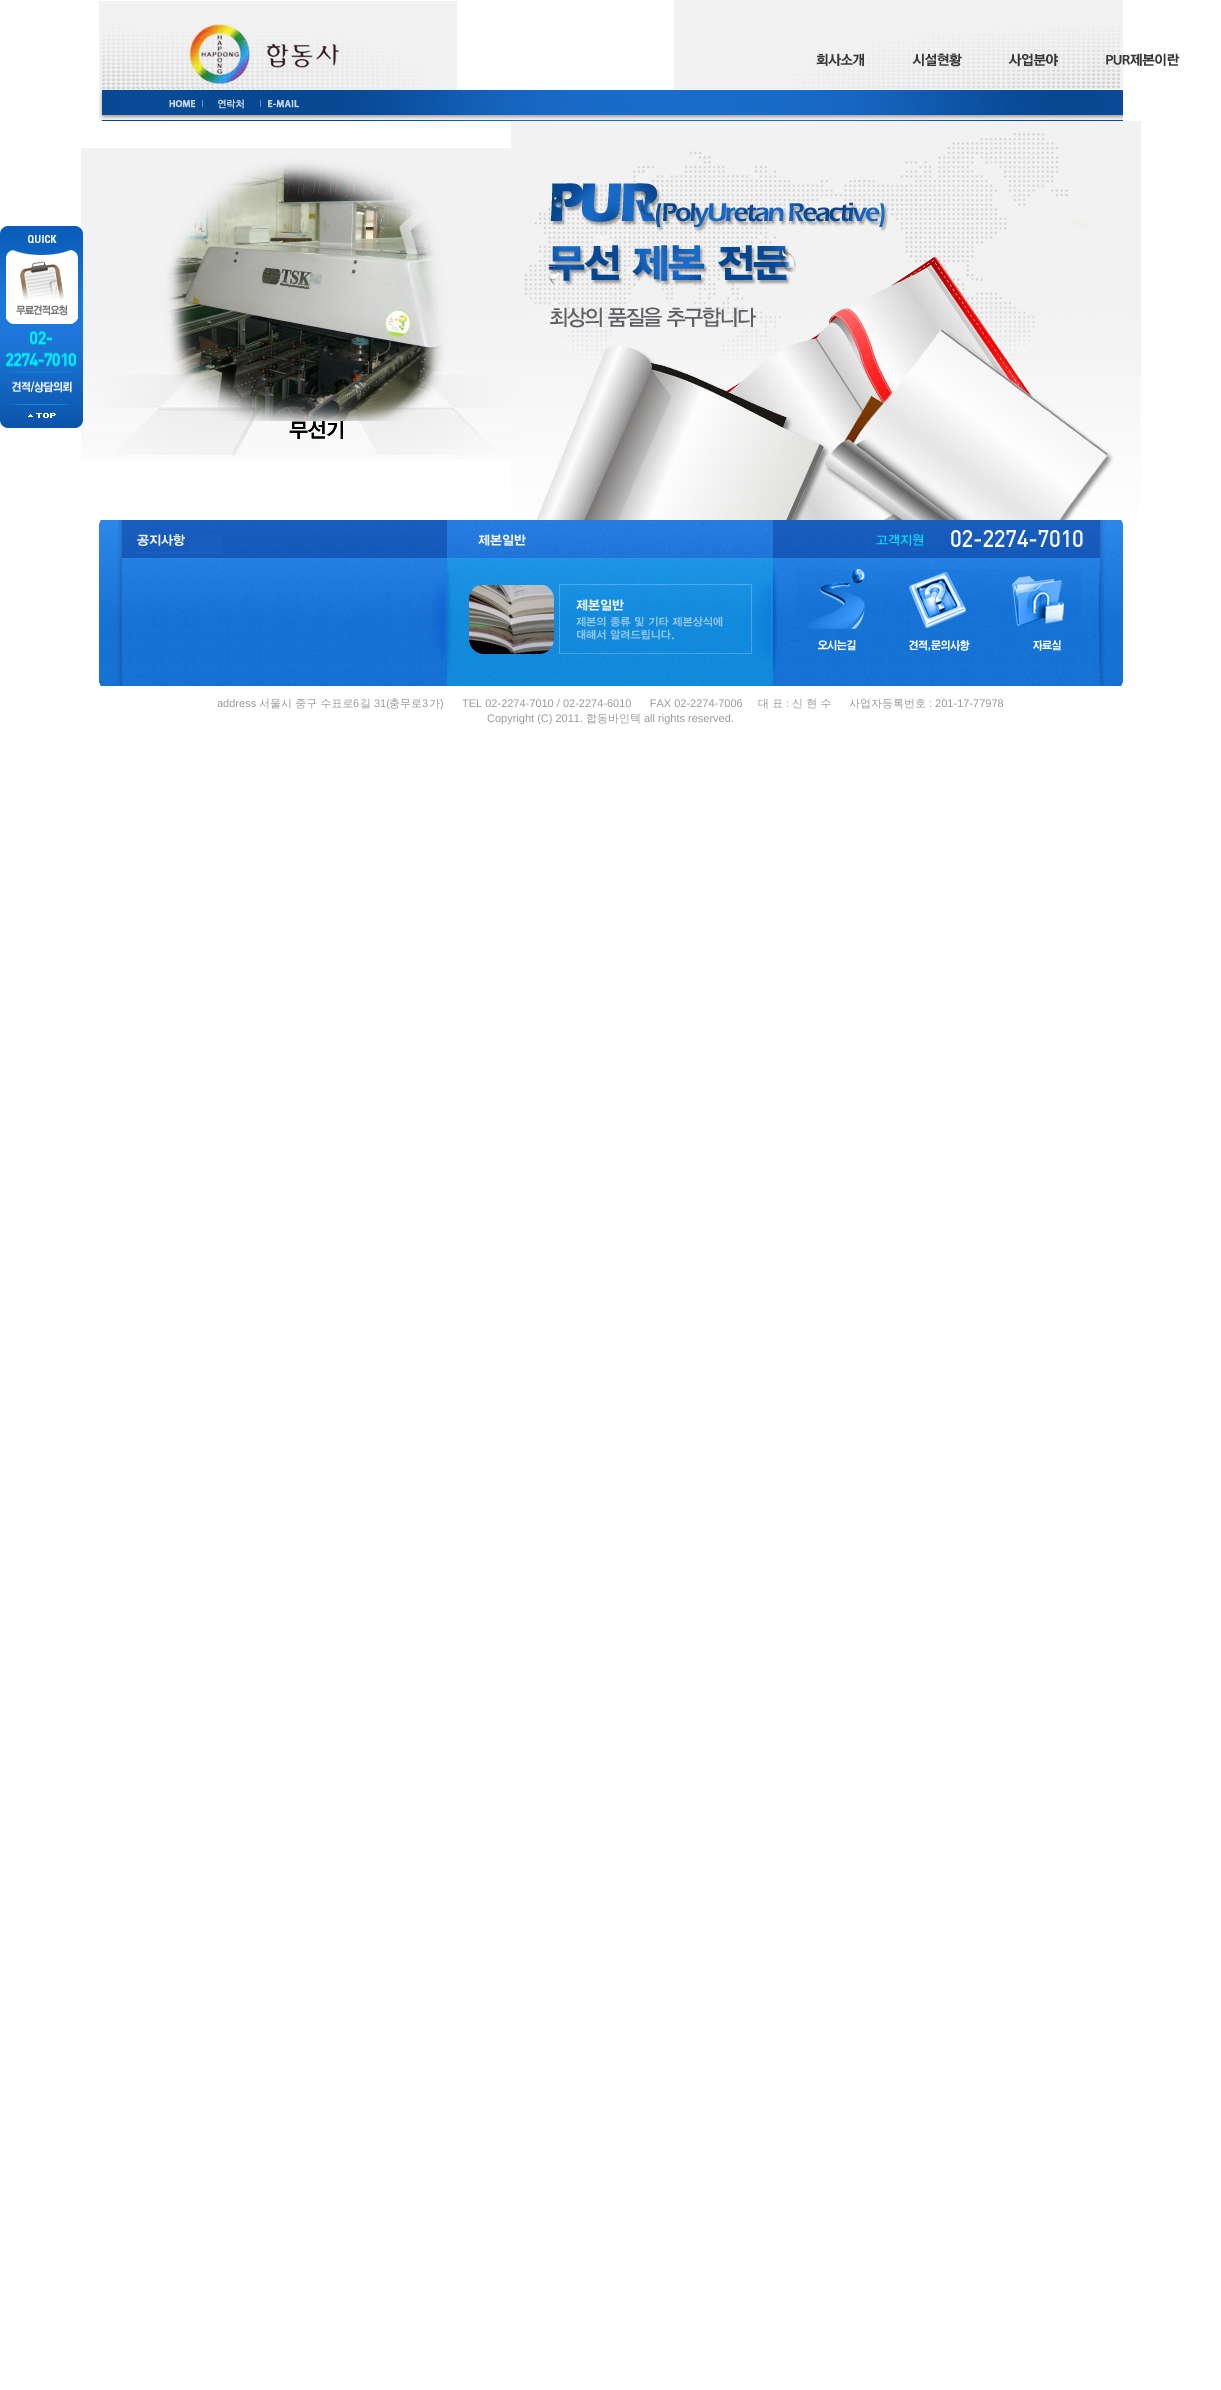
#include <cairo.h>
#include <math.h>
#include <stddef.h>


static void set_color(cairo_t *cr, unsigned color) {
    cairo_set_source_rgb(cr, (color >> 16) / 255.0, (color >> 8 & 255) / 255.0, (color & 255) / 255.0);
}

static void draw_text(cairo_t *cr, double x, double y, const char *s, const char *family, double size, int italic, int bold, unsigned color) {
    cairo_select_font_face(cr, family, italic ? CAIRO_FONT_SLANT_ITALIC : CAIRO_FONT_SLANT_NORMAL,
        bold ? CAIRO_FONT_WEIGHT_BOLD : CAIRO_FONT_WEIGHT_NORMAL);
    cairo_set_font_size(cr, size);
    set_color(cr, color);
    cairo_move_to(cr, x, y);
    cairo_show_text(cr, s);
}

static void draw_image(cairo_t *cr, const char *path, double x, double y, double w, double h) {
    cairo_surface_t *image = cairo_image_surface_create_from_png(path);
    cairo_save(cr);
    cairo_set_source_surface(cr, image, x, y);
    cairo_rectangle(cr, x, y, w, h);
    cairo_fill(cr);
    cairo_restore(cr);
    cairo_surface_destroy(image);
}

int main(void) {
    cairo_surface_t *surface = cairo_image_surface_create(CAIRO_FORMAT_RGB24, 1221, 2390);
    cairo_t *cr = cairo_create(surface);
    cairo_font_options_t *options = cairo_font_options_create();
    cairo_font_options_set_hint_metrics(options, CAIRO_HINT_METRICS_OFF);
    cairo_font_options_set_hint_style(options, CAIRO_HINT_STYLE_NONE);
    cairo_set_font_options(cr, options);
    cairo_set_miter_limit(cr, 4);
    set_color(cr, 0xFFFFFF);
    cairo_paint(cr);
    draw_image(cr, "assets/img15.png", 81, 148, 430, 312);
    draw_image(cr, "assets/img1.png", 0, 226, 83, 23);
    draw_image(cr, "assets/img2.png", 0, 249, 83, 75);
    draw_image(cr, "assets/img3.png", 0, 324, 83, 80);
    draw_image(cr, "assets/img4.png", 0, 404, 83, 24);
    draw_image(cr, "assets/img5.png", 99, 1, 358, 89);
    draw_image(cr, "assets/img6.png", 674, 0, 449, 89);
    draw_image(cr, "assets/img7.png", 816, 53, 48, 13);
    draw_image(cr, "assets/img8.png", 912, 53, 50, 14);
    draw_image(cr, "assets/img9.png", 1008, 53, 50, 13);
    draw_image(cr, "assets/img10.png", 1106, 53, 74, 13);
    draw_image(cr, "assets/img11.png", 99, 90, 1024, 31);
    draw_image(cr, "assets/img12.png", 169, 100, 34, 8);
    draw_image(cr, "assets/img13.png", 218, 99, 43, 10);
    draw_image(cr, "assets/img14.png", 268, 100, 31, 8);
    draw_image(cr, "assets/img16.png", 511, 121, 630, 399);
    draw_image(cr, "assets/img17.png", 99, 520, 23, 166);
    draw_image(cr, "assets/img18.png", 122, 520, 325, 166);
    draw_image(cr, "assets/img19.png", 136, 534, 86, 20);
    draw_image(cr, "assets/img20.png", 447, 520, 326, 166);
    draw_image(cr, "assets/img21.png", 773, 520, 327, 166);
    draw_image(cr, "assets/img22.png", 870, 530, 214, 19);
    draw_image(cr, "assets/img23.png", 790, 569, 95, 84);
    draw_image(cr, "assets/img24.png", 885, 569, 106, 84);
    draw_image(cr, "assets/img25.png", 991, 569, 91, 84);
    draw_image(cr, "assets/img26.png", 1100, 520, 23, 166);
    draw_text(cr, 217, 707, "address", "Liberation Sans", 11, 0, 0, 0x999999);
    draw_text(cr, 259, 707, "서울시 중구 수표로", "WenQuanYi Zen Hei Medium", 11, 0, 0, 0x999999);
    draw_text(cr, 353, 707, "6", "Liberation Sans", 11, 0, 0, 0x999999);
    draw_text(cr, 360, 707, "길", "WenQuanYi Zen Hei Medium", 11, 0, 0, 0x999999);
    draw_text(cr, 374, 707, "31(", "Liberation Sans", 11, 0, 0, 0x999999);
    draw_text(cr, 389, 707, "충무로", "WenQuanYi Zen Hei Medium", 11, 0, 0, 0x999999);
    draw_text(cr, 422, 707, "3", "Liberation Sans", 11, 0, 0, 0x999999);
    draw_text(cr, 429, 707, "가", "WenQuanYi Zen Hei Medium", 11, 0, 0, 0x999999);
    draw_text(cr, 440, 707, ")      TEL 02-2274-7010 / 02-2274-6010      FAX 02-2274-7006", "Liberation Sans", 11, 0, 0, 0x999999);
    draw_text(cr, 758, 707, "대 표", "WenQuanYi Zen Hei Medium", 11, 0, 0, 0x999999);
    draw_text(cr, 786, 707, ":", "Liberation Sans", 11, 0, 0, 0x999999);
    draw_text(cr, 792, 707, "신 현 수", "WenQuanYi Zen Hei Medium", 11, 0, 0, 0x999999);
    draw_text(cr, 849, 707, "사업자등록번호", "WenQuanYi Zen Hei Medium", 11, 0, 0, 0x999999);
    draw_text(cr, 929, 707, ": 201-17-77978", "Liberation Sans", 11, 0, 0, 0x999999);
    draw_text(cr, 487, 722, "Copyright (C) 2011.", "Liberation Sans", 11, 0, 0, 0x999999);
    draw_text(cr, 586, 722, "합동바인텍", "WenQuanYi Zen Hei Medium", 11, 0, 0, 0x999999);
    draw_text(cr, 644, 722, "all rights reserved.", "Liberation Sans", 11, 0, 0, 0x999999);
    cairo_surface_write_to_png(surface, "output.png");
    cairo_font_options_destroy(options);
    cairo_destroy(cr);
    cairo_surface_destroy(surface);
    return 0;
}
